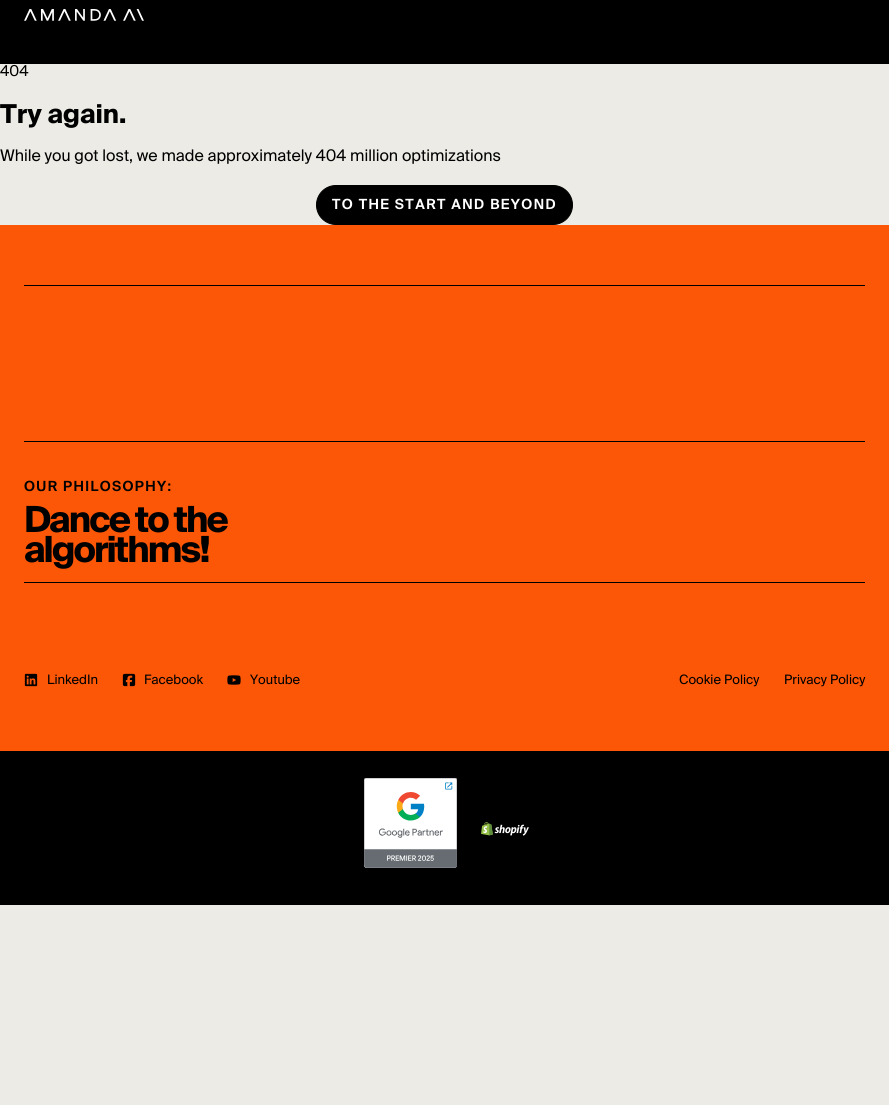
#include <cairo.h>
#include <math.h>
#include <stddef.h>


static void set_color(cairo_t *cr, unsigned color) {
    cairo_set_source_rgb(cr, (color >> 16) / 255.0, (color >> 8 & 255) / 255.0, (color & 255) / 255.0);
}

static void draw_text(cairo_t *cr, double x, double y, const char *s, const char *family, double size, int italic, int bold, unsigned color) {
    cairo_select_font_face(cr, family, italic ? CAIRO_FONT_SLANT_ITALIC : CAIRO_FONT_SLANT_NORMAL,
        bold ? CAIRO_FONT_WEIGHT_BOLD : CAIRO_FONT_WEIGHT_NORMAL);
    cairo_set_font_size(cr, size);
    set_color(cr, color);
    cairo_move_to(cr, x, y);
    cairo_show_text(cr, s);
}

static void draw_spaced(cairo_t *cr, double x, double y, const char *s, double letter, double word) {
    cairo_move_to(cr, x, y);
    while (*s) {
        char ch[5] = {0};
        int n = 0;
        do ch[n++] = *s++; while ((*s & 0xC0) == 0x80);
        cairo_show_text(cr, ch);
        cairo_rel_move_to(cr, letter + word * (*ch == ' '), 0);
    }
}

static void fill_rect(cairo_t *cr, double x, double y, double w, double h, unsigned color) {
    set_color(cr, color);
    cairo_rectangle(cr, x, y, w, h);
    cairo_fill(cr);
}

static void rounded_rect(cairo_t *cr, double x, double y, double w, double h, double r) {
    cairo_new_sub_path(cr);
    cairo_arc(cr, x + w - r, y + h - r, r, 0, M_PI / 2);
    cairo_arc(cr, x + r, y + h - r, r, M_PI / 2, M_PI);
    cairo_arc(cr, x + r, y + r, r, M_PI, 1.5 * M_PI);
    cairo_arc(cr, x + w - r, y + r, r, 1.5 * M_PI, 2 * M_PI);
    cairo_close_path(cr);
}

static void draw_image(cairo_t *cr, const char *path, double x, double y, double w, double h) {
    cairo_surface_t *image = cairo_image_surface_create_from_png(path);
    cairo_save(cr);
    cairo_set_source_surface(cr, image, x, y);
    cairo_rectangle(cr, x, y, w, h);
    cairo_fill(cr);
    cairo_restore(cr);
    cairo_surface_destroy(image);
}

int main(void) {
    cairo_surface_t *surface = cairo_image_surface_create(CAIRO_FORMAT_RGB24, 889, 1105);
    cairo_t *cr = cairo_create(surface);
    cairo_font_options_t *options = cairo_font_options_create();
    cairo_font_options_set_hint_metrics(options, CAIRO_HINT_METRICS_OFF);
    cairo_font_options_set_hint_style(options, CAIRO_HINT_STYLE_NONE);
    cairo_set_font_options(cr, options);
    cairo_set_miter_limit(cr, 4);
    set_color(cr, 0xECEBE5);
    cairo_paint(cr);
    fill_rect(cr, 0, 0, 889, 64, 0x000000);
    draw_image(cr, "assets/img1.png", 24, 9, 120, 12);
    draw_text(cr, 0, 76, "404", "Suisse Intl", 15, 0, 0, 0x000000);
    draw_text(cr, 0, 123, "Try again.", "Suisse Intl", 26, 0, 1, 0x000000);
    draw_text(cr, 0, 161, "While you got lost, we made approximately 404 million optimizations", "Suisse Intl", 16, 0, 0, 0x000000);
    rounded_rect(cr, 316.5, 185.5, 256, 39, 19.5);
    cairo_fill_preserve(cr);
    cairo_set_line_width(cr, 1);
    cairo_stroke(cr);
    cairo_select_font_face(cr, "Suisse Intl SemiBold", CAIRO_FONT_SLANT_NORMAL, CAIRO_FONT_WEIGHT_NORMAL);
    cairo_set_font_size(cr, 14);
    set_color(cr, 0xFFFFFF);
    draw_spaced(cr, 332, 209, "TO THE START AND BEYOND", 1.4, 0);
    fill_rect(cr, 0, 225, 889, 526, 0xFC5607);
    fill_rect(cr, 24, 285, 841, 1, 0x000000);
    fill_rect(cr, 24, 582, 841, 1, 0x000000);
    fill_rect(cr, 24, 441, 841, 1, 0x000000);
    draw_spaced(cr, 24, 491, "OUR PHILOSOPHY:", 1.4, 0);
    cairo_select_font_face(cr, "Suisse Intl", CAIRO_FONT_SLANT_NORMAL, CAIRO_FONT_WEIGHT_BOLD);
    cairo_set_font_size(cr, 36);
    draw_spaced(cr, 24, 532, "Dance to the", -1.9, 0);
    draw_spaced(cr, 24, 562, "algorithms!", -1.9, 0);
    draw_image(cr, "assets/img2.png", 24, 673, 14, 14);
    draw_text(cr, 47, 684, "LinkedIn", "Suisse Intl", 13, 0, 0, 0x000000);
    draw_image(cr, "assets/img3.png", 122, 673, 14, 14);
    draw_text(cr, 144, 684, "Facebook", "Suisse Intl", 13, 0, 0, 0x000000);
    draw_image(cr, "assets/img4.png", 227, 675, 14, 10);
    draw_text(cr, 250, 684, "Youtube", "Suisse Intl", 13, 0, 0, 0x000000);
    draw_text(cr, 679, 684, "Cookie Policy", "Suisse Intl", 13, 0, 0, 0x000000);
    draw_text(cr, 784, 684, "Privacy Policy", "Suisse Intl", 13, 0, 0, 0x000000);
    fill_rect(cr, 0, 751, 889, 154, 0x000000);
    draw_image(cr, "assets/img5.png", 364, 778, 93, 90);
    draw_image(cr, "assets/img6.png", 481, 822, 48, 14);
    cairo_surface_write_to_png(surface, "output.png");
    cairo_font_options_destroy(options);
    cairo_destroy(cr);
    cairo_surface_destroy(surface);
    return 0;
}
